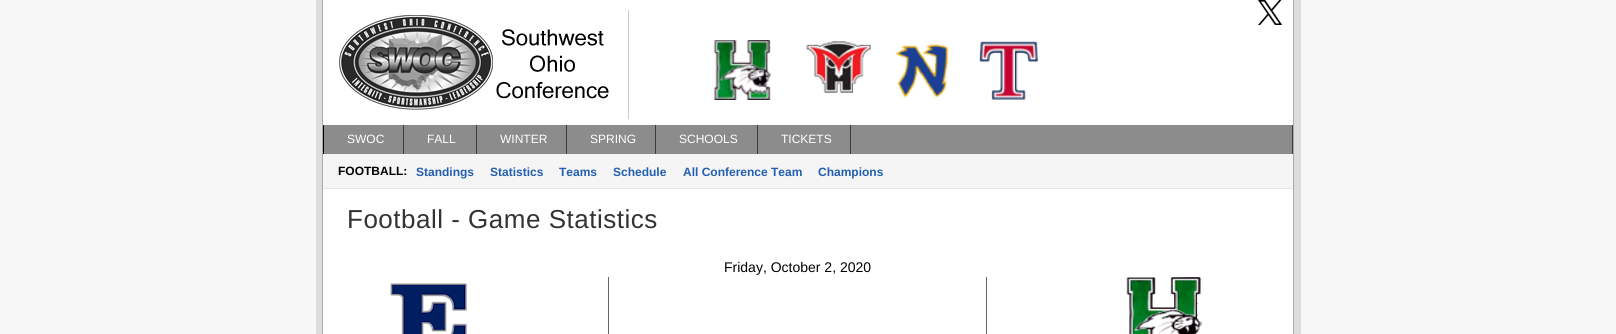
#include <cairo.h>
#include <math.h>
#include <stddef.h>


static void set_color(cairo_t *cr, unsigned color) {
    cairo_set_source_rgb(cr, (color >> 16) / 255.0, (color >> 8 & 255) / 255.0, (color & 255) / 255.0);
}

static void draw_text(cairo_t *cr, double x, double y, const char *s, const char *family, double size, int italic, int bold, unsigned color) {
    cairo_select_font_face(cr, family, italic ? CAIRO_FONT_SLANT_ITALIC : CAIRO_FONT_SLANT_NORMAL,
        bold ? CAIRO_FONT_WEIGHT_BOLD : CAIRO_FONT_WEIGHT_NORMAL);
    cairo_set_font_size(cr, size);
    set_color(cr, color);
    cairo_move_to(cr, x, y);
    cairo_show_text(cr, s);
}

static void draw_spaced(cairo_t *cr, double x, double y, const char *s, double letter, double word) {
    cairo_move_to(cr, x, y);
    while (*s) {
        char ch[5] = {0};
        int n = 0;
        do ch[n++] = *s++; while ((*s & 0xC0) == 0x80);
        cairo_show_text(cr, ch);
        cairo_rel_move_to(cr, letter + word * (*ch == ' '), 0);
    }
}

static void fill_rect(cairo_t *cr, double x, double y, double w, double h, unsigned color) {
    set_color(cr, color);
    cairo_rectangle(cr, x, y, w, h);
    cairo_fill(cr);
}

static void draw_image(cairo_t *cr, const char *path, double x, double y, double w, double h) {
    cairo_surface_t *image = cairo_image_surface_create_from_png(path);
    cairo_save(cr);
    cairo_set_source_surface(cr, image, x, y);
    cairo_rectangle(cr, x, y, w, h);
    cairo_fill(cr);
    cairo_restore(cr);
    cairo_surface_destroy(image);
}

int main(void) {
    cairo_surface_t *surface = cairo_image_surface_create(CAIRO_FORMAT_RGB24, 1616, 334);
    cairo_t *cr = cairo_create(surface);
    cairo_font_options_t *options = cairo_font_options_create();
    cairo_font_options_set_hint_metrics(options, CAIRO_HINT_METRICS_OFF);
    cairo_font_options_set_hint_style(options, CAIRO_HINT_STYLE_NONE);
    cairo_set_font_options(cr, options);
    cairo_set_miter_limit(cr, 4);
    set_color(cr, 0xF7F7F7);
    cairo_paint(cr);
    fill_rect(cr, 316, 0, 985, 334, 0xDDDDDD);
    fill_rect(cr, 323, 0, 970, 334, 0xFFFFFF);
    fill_rect(cr, 1293, 0, 1, 334, 0xAAAAAA);
    fill_rect(cr, 322, 0, 1, 334, 0xAAAAAA);
    draw_image(cr, "assets/img1.png", 339, 15, 270, 95);
    fill_rect(cr, 628, 10, 1, 109, 0xCCCCCC);
    draw_image(cr, "assets/img2.png", 713, 40, 326, 60);
    draw_image(cr, "assets/img3.png", 1258, 0, 25, 25);
    fill_rect(cr, 324, 125, 968, 29, 0x8C8C8C);
    fill_rect(cr, 403, 125, 1, 30, 0x3C3C3C);
    fill_rect(cr, 323, 125, 1, 30, 0x000000);
    draw_text(cr, 347, 143, "SWOC", "Liberation Sans", 12, 0, 0, 0xFFFFFF);
    fill_rect(cr, 476, 125, 1, 30, 0x3C3C3C);
    draw_text(cr, 427, 143, "FALL", "Liberation Sans", 12, 0, 0, 0xFFFFFF);
    fill_rect(cr, 566, 125, 1, 30, 0x3C3C3C);
    draw_text(cr, 500, 143, "WINTER", "Liberation Sans", 12, 0, 0, 0xFFFFFF);
    fill_rect(cr, 655, 125, 1, 30, 0x3C3C3C);
    draw_text(cr, 590, 143, "SPRING", "Liberation Sans", 12, 0, 0, 0xFFFFFF);
    fill_rect(cr, 757, 125, 1, 30, 0x3C3C3C);
    draw_text(cr, 679, 143, "SCHOOLS", "Liberation Sans", 12, 0, 0, 0xFFFFFF);
    fill_rect(cr, 850, 125, 1, 30, 0x3C3C3C);
    draw_text(cr, 781, 143, "TICKETS", "Liberation Sans", 12, 0, 0, 0xFFFFFF);
    fill_rect(cr, 1292, 125, 1, 30, 0x3C3C3C);
    fill_rect(cr, 323, 154, 970, 34, 0xF5F5F5);
    fill_rect(cr, 323, 188, 970, 1, 0xE5E5E5);
    draw_text(cr, 338, 175, "FOOTBALL:", "Liberation Sans", 12, 0, 1, 0x000000);
    draw_text(cr, 416, 176, "Standings", "Liberation Sans", 12, 0, 1, 0x225FB2);
    draw_text(cr, 490, 176, "Statistics", "Liberation Sans", 12, 0, 1, 0x225FB2);
    draw_text(cr, 559, 176, "Teams", "Liberation Sans", 12, 0, 1, 0x225FB2);
    draw_text(cr, 613, 176, "Schedule", "Liberation Sans", 12, 0, 1, 0x225FB2);
    draw_text(cr, 683, 176, "All Conference Team", "Liberation Sans", 12, 0, 1, 0x225FB2);
    draw_text(cr, 818, 176, "Champions", "Liberation Sans", 12, 0, 1, 0x225FB2);
    cairo_select_font_face(cr, "Liberation Sans", CAIRO_FONT_SLANT_NORMAL, CAIRO_FONT_WEIGHT_NORMAL);
    cairo_set_font_size(cr, 26);
    set_color(cr, 0x333333);
    draw_spaced(cr, 347, 228, "Football - Game Statistics", 0.5, 0);
    draw_text(cr, 724, 272, "Friday, October 2, 2020", "Liberation Sans", 14, 0, 0, 0x000000);
    fill_rect(cr, 608, 277, 1, 57, 0x666666);
    draw_image(cr, "assets/img4.png", 390, 283, 77, 51);
    fill_rect(cr, 986, 277, 1, 57, 0x666666);
    draw_image(cr, "assets/img5.png", 1126, 277, 76, 57);
    cairo_surface_write_to_png(surface, "output.png");
    cairo_font_options_destroy(options);
    cairo_destroy(cr);
    cairo_surface_destroy(surface);
    return 0;
}
